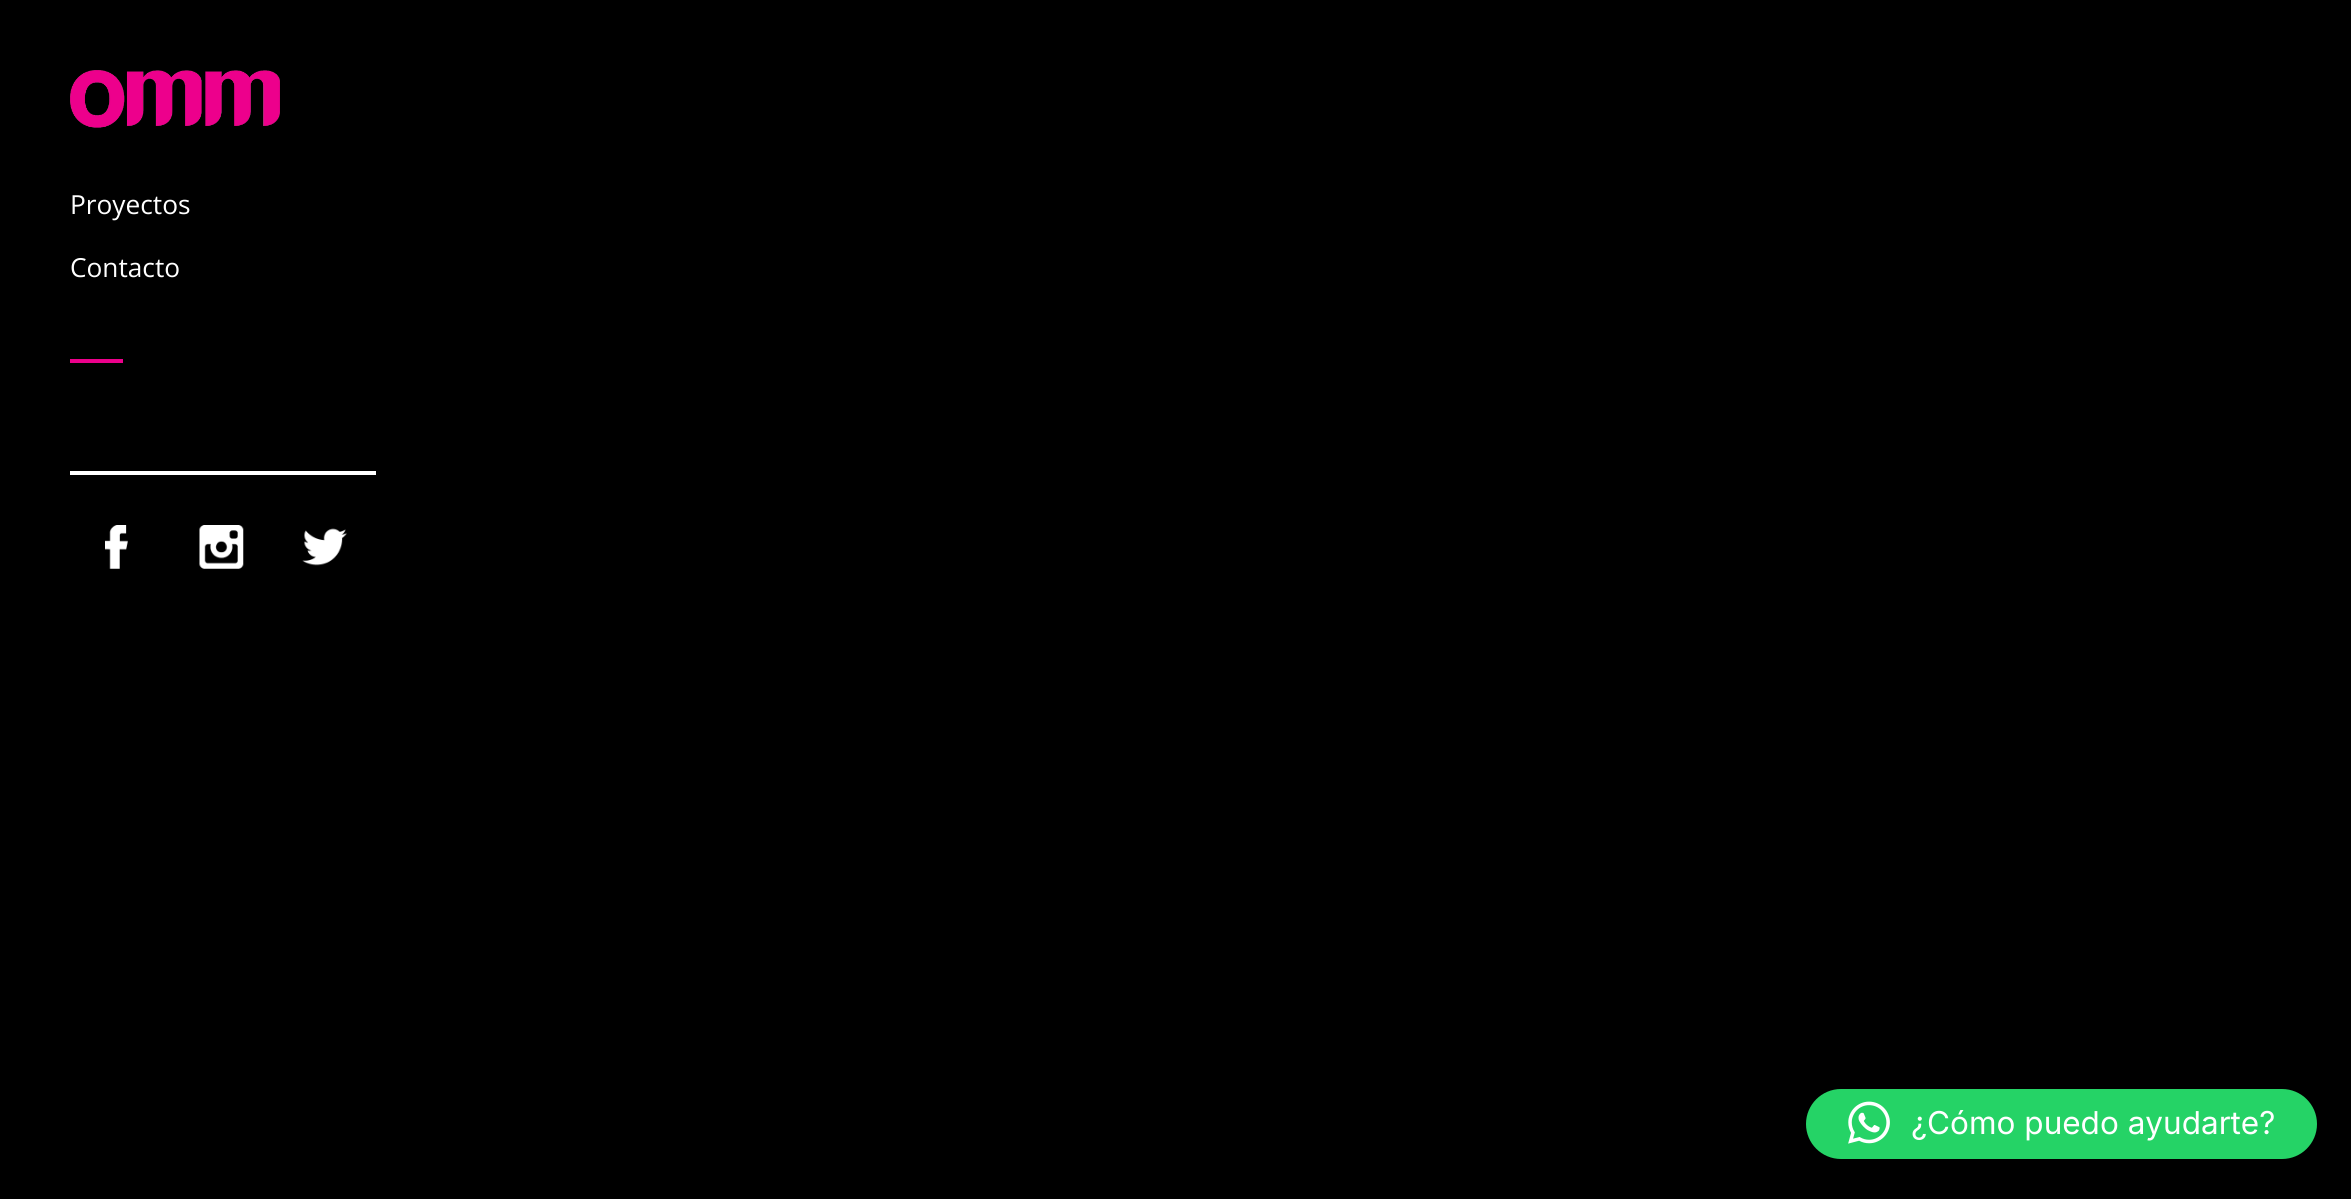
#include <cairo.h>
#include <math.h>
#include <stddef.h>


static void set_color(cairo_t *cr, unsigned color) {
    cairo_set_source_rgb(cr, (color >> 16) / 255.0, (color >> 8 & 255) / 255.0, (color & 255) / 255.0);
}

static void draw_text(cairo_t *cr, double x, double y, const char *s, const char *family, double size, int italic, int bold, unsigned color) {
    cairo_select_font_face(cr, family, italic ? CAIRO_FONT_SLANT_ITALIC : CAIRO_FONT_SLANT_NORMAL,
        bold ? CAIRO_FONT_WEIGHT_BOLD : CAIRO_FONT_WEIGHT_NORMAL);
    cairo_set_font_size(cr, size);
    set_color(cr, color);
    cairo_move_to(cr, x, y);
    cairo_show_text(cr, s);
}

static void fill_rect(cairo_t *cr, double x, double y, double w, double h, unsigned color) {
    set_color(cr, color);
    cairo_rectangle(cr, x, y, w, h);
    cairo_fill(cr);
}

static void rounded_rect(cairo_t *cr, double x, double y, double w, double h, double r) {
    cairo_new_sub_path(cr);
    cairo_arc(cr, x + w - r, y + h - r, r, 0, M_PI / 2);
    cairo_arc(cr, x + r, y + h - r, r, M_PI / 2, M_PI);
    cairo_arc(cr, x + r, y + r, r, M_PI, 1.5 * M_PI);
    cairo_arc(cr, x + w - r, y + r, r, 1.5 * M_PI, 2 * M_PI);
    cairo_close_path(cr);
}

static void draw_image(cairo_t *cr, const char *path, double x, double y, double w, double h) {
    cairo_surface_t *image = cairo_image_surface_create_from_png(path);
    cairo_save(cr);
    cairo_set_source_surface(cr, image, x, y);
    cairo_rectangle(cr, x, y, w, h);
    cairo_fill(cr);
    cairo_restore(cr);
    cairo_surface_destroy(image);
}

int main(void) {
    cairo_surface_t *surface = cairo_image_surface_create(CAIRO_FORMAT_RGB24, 2351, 1199);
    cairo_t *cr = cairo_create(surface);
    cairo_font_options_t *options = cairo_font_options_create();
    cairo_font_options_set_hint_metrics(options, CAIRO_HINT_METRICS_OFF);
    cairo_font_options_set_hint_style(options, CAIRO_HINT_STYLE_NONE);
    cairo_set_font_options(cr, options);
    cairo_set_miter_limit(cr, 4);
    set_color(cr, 0x000000);
    cairo_paint(cr);
    draw_image(cr, "assets/img1.png", 70, 70, 210, 58);
    draw_text(cr, 70, 214, "Proyectos", "Open Sans", 26.25, 0, 0, 0xFFFFFF);
    draw_text(cr, 70, 277, "Contacto", "Open Sans", 26.25, 0, 0, 0xFFFFFF);
    fill_rect(cr, 70, 359, 53, 4, 0xEC008B);
    fill_rect(cr, 70, 471, 306, 4, 0xFFFFFF);
    draw_image(cr, "assets/img2.png", 105, 525, 23, 44);
    draw_image(cr, "assets/img3.png", 199, 525, 45, 44);
    draw_image(cr, "assets/img4.png", 302, 528, 45, 38);
    set_color(cr, 0x25D366);
    rounded_rect(cr, 1806, 1089, 511, 70, 35);
    cairo_fill(cr);
    draw_image(cr, "assets/img5.png", 1848, 1101, 42, 43);
    draw_text(cr, 1911, 1134, "¿Cómo puedo ayudarte?", "Inter", 31.5, 0, 0, 0xFFFFFF);
    cairo_surface_write_to_png(surface, "output.png");
    cairo_font_options_destroy(options);
    cairo_destroy(cr);
    cairo_surface_destroy(surface);
    return 0;
}
